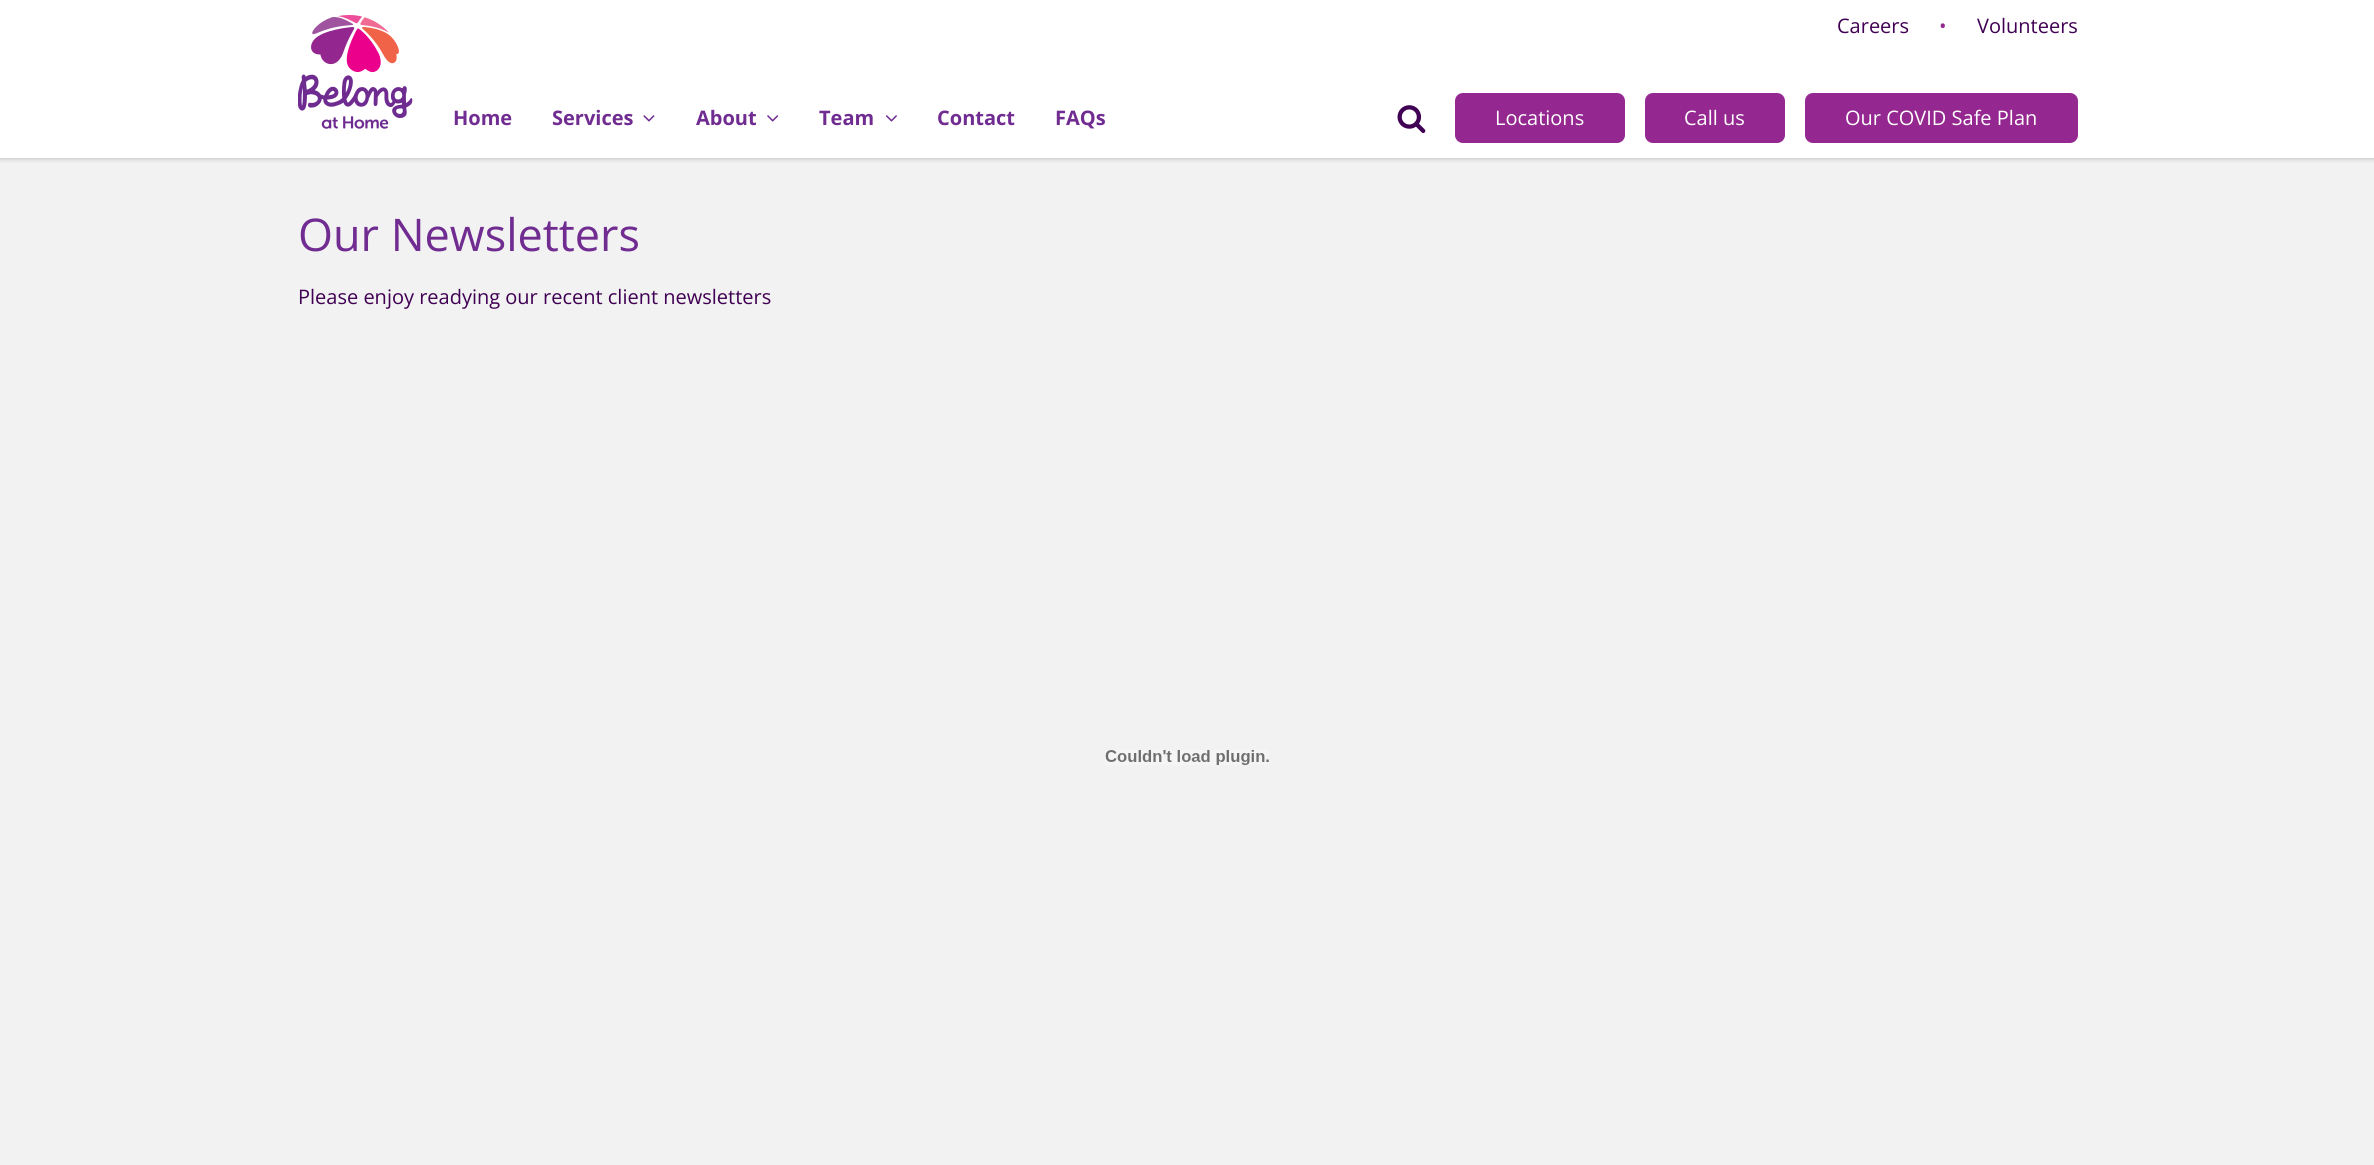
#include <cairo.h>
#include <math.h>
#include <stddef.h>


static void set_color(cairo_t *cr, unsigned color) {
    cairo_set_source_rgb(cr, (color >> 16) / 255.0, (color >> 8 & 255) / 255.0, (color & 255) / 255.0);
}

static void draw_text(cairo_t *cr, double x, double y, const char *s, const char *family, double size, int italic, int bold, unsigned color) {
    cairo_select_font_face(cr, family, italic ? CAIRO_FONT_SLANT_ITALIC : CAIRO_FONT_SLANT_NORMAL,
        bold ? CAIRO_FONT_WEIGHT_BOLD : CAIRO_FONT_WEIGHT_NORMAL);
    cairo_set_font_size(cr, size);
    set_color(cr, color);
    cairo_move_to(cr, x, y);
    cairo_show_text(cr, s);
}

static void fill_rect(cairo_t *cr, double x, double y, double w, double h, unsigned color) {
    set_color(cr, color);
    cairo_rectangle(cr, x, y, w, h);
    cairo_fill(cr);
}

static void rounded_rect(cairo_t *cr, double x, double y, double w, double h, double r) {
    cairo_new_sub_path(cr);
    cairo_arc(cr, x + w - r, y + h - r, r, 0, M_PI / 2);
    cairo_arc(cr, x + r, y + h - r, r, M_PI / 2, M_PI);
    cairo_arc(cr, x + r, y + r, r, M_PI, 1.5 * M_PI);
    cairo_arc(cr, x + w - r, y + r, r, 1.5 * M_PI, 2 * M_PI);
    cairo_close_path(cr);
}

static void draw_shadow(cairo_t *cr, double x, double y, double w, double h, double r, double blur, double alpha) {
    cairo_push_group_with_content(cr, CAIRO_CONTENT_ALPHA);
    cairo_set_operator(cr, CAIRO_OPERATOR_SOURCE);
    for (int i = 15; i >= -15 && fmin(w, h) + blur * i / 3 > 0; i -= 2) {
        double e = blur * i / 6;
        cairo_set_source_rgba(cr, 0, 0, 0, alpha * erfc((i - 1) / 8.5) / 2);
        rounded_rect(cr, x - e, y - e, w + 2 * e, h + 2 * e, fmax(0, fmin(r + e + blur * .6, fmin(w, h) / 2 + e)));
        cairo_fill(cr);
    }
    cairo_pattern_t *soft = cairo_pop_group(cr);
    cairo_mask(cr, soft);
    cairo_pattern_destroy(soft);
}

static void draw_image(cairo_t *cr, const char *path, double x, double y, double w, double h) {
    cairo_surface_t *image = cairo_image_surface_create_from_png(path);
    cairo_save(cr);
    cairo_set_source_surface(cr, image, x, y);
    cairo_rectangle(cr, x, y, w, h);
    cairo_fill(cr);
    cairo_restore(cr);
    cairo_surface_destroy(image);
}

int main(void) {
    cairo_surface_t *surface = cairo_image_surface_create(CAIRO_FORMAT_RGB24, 2374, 1165);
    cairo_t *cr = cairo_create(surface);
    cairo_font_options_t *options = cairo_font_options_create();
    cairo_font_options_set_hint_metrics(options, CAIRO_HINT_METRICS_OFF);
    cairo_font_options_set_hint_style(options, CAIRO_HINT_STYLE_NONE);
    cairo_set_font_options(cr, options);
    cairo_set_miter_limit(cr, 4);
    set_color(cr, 0xF2F2F2);
    cairo_paint(cr);
    set_color(cr, 0x000000);
    draw_shadow(cr, 0, 1, 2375, 158, 0, 2.5, 0.2);
    fill_rect(cr, 0, 0, 2374, 158, 0xFFFFFF);
    draw_image(cr, "assets/img1.png", 298, 15, 115, 114);
    draw_text(cr, 1837, 33, "Careers", "Open Sans", 20, 0, 0, 0x400053);
    draw_text(cr, 1939, 33, "•", "Open Sans", 20, 0, 0, 0x942790);
    draw_text(cr, 1977, 33, "Volunteers", "Open Sans", 20, 0, 0, 0x400053);
    draw_text(cr, 453, 125, "Home", "Open Sans", 20, 0, 1, 0x702C91);
    draw_text(cr, 552, 125, "Services", "Open Sans", 20, 0, 1, 0x702C91);
    draw_image(cr, "assets/img2.png", 643, 115, 12, 7);
    draw_text(cr, 696, 125, "About", "Open Sans", 20, 0, 1, 0x702C91);
    draw_image(cr, "assets/img3.png", 767, 115, 12, 7);
    draw_text(cr, 819, 125, "Team", "Open Sans", 20, 0, 1, 0x702C91);
    draw_image(cr, "assets/img4.png", 885, 115, 12, 7);
    draw_text(cr, 937, 125, "Contact", "Open Sans", 20, 0, 1, 0x702C91);
    draw_text(cr, 1055, 125, "FAQs", "Open Sans", 20, 0, 1, 0x702C91);
    draw_image(cr, "assets/img5.png", 1397, 105, 29, 28);
    set_color(cr, 0x942790);
    rounded_rect(cr, 1455, 93, 170, 50, 8);
    cairo_fill(cr);
    draw_text(cr, 1495, 125, "Locations", "Open Sans", 20, 0, 0, 0xFFFFFF);
    set_color(cr, 0x942790);
    rounded_rect(cr, 1645, 93, 140, 50, 8);
    cairo_fill(cr);
    draw_text(cr, 1684, 125, "Call us", "Open Sans", 20, 0, 0, 0xFFFFFF);
    set_color(cr, 0x942790);
    rounded_rect(cr, 1805, 93, 273, 50, 8);
    cairo_fill(cr);
    draw_text(cr, 1845, 125, "Our COVID Safe Plan", "Open Sans", 20, 0, 0, 0xFFFFFF);
    draw_text(cr, 298, 251, "Our Newsletters", "Open Sans", 45, 0, 0, 0x702C91);
    draw_text(cr, 298, 304, "Please enjoy readying our recent client newsletters", "Open Sans", 20, 0, 0, 0x400053);
    draw_image(cr, "assets/img6.png", 1105, 750, 164, 15);
    cairo_surface_write_to_png(surface, "output.png");
    cairo_font_options_destroy(options);
    cairo_destroy(cr);
    cairo_surface_destroy(surface);
    return 0;
}
